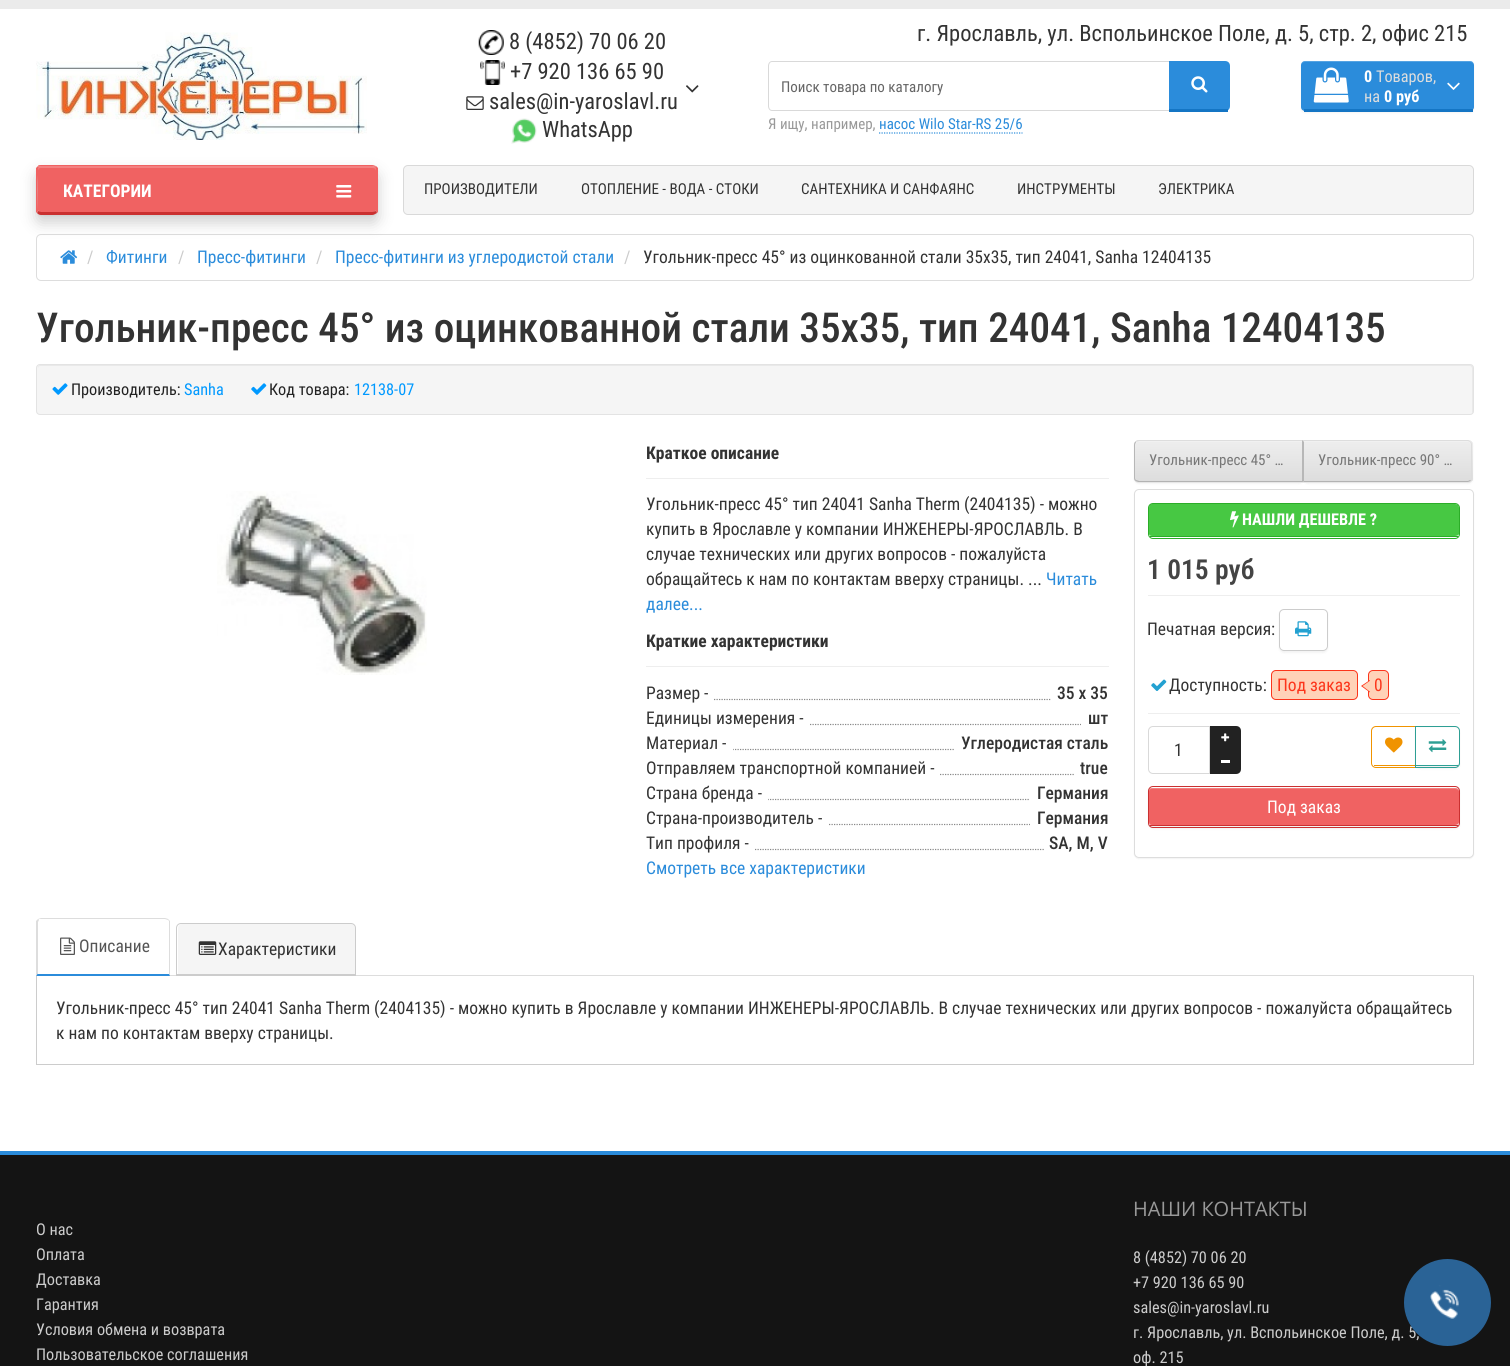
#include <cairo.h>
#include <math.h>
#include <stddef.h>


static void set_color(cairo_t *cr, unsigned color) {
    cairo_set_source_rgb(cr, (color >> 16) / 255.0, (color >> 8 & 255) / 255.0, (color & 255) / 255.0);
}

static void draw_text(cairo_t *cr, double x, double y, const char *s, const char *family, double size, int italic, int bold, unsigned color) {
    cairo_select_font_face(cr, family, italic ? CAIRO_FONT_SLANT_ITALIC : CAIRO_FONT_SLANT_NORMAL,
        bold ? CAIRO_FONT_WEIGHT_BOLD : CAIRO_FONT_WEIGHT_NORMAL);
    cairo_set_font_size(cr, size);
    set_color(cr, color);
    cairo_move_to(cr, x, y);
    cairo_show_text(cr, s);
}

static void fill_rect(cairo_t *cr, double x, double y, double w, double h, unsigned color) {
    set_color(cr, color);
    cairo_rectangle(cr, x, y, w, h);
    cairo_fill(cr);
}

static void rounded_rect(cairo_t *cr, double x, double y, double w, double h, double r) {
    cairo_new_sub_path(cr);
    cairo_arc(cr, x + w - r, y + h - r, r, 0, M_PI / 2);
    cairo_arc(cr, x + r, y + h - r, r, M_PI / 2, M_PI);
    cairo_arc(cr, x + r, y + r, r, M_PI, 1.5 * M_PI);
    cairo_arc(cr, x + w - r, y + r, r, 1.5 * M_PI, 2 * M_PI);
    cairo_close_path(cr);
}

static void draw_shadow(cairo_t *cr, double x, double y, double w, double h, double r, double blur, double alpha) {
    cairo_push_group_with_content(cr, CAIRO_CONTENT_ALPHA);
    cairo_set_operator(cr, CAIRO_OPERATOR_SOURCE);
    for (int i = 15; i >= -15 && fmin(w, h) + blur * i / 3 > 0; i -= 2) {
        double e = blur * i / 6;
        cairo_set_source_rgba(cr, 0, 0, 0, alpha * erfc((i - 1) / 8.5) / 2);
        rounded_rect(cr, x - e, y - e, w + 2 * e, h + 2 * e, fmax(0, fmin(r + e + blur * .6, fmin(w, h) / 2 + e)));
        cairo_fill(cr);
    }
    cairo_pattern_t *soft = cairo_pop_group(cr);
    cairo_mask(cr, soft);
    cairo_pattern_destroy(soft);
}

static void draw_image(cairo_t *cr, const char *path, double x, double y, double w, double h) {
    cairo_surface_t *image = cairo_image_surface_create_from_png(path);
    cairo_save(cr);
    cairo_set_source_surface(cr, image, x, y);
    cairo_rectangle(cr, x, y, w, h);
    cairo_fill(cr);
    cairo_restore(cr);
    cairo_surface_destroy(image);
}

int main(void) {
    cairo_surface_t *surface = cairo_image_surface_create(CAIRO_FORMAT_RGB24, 1510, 1366);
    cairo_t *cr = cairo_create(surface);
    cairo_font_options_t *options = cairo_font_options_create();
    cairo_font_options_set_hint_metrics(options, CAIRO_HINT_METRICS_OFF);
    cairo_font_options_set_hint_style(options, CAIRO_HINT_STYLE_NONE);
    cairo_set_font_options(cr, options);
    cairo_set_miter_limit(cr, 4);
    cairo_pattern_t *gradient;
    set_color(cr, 0xFFFFFF);
    cairo_paint(cr);
    fill_rect(cr, 0, 0, 1510, 9, 0xEBEBEB);
    draw_image(cr, "assets/img1.png", 36, 32, 331, 108);
    draw_image(cr, "assets/img2.png", 478, 30, 26, 25);
    draw_text(cr, 509, 49, "8 (4852) 70 06 20", "Roboto Condensed", 22.5, 0, 0, 0x333333);
    draw_image(cr, "assets/img3.png", 480, 60, 25, 25);
    draw_text(cr, 510, 79, "+7 920 136 65 90", "Roboto Condensed", 22.5, 0, 0, 0x333333);
    draw_image(cr, "assets/img4.png", 686, 85, 13, 8);
    draw_image(cr, "assets/img5.png", 466, 96, 18, 14);
    draw_text(cr, 489, 109, "sales@in-yaroslavl.ru", "Roboto Condensed", 22.5, 0, 0, 0x333333);
    draw_image(cr, "assets/img6.png", 511, 118, 26, 26);
    draw_text(cr, 542, 137, "WhatsApp", "Roboto Condensed", 22.5, 0, 0, 0x333333);
    draw_text(cr, 917, 41, "г. Ярославль, ул. Вспольинское Поле, д. 5, стр. 2, офис 215", "Roboto Condensed", 22.5, 0, 0, 0x333333);
    set_color(cr, 0xD9D9D9);
    cairo_set_fill_rule(cr, CAIRO_FILL_RULE_EVEN_ODD);
    cairo_new_path(cr);
    cairo_move_to(cr, 772, 61);
    cairo_line_to(cr, 1169, 61);
    cairo_line_to(cr, 1169, 111);
    cairo_line_to(cr, 772, 111);
    cairo_curve_to(cr, 770, 111, 768, 109, 768, 106);
    cairo_line_to(cr, 768, 66);
    cairo_curve_to(cr, 768, 63, 770, 61, 772, 61);
    cairo_close_path(cr);
    cairo_move_to(cr, 772, 62);
    cairo_line_to(cr, 1169, 62);
    cairo_line_to(cr, 1169, 110);
    cairo_line_to(cr, 772, 110);
    cairo_curve_to(cr, 770, 110, 769, 108, 769, 106);
    cairo_line_to(cr, 769, 66);
    cairo_curve_to(cr, 769, 64, 770, 62, 772, 62);
    cairo_close_path(cr);
    cairo_fill(cr);
    draw_text(cr, 781, 92, "Поиск товара по каталогу", "Roboto Condensed", 15, 0, 0, 0x666666);
    set_color(cr, 0x2B8CDB);
    cairo_new_path(cr);
    cairo_move_to(cr, 1169, 61);
    cairo_line_to(cr, 1225, 61);
    cairo_curve_to(cr, 1228, 61, 1230, 63, 1230, 66);
    cairo_line_to(cr, 1230, 106);
    cairo_curve_to(cr, 1230, 109, 1228, 111, 1225, 111);
    cairo_line_to(cr, 1169, 111);
    cairo_close_path(cr);
    cairo_fill(cr);
    fill_rect(cr, 1169, 109, 59, 3, 0x1475C4);
    draw_image(cr, "assets/img7.png", 1191, 76, 17, 17);
    draw_text(cr, 768, 129, "Я ищу, например,", "Roboto Condensed", 15, 0, 0, 0x999999);
    draw_text(cr, 879, 129, "насос Wilo Star-RS 25/6", "Roboto Condensed", 15, 0, 0, 0x2B8CDB);
    cairo_new_path(cr);
    cairo_move_to(cr, 879, 133);
    cairo_line_to(cr, 1022.5, 133);
    cairo_set_line_width(cr, 1.2);
    cairo_set_dash(cr, (double[]){1.25, 1.25}, 2, 0);
    cairo_stroke(cr);
    set_color(cr, 0x000000);
    draw_shadow(cr, 1301, 63, 173, 50, 4, 1, 0.05);
    set_color(cr, 0x2B8CDB);
    rounded_rect(cr, 1301, 61, 173, 50, 4);
    cairo_fill(cr);
    cairo_set_source_rgba(cr, 1, 1, 1, 0.2);
    cairo_set_fill_rule(cr, CAIRO_FILL_RULE_WINDING);
    cairo_new_path(cr);
    cairo_move_to(cr, 1305, 62);
    cairo_line_to(cr, 1470, 62);
    cairo_curve_to(cr, 1472, 62, 1473, 63, 1474, 65);
    cairo_curve_to(cr, 1474, 63, 1472, 61, 1470, 61);
    cairo_line_to(cr, 1305, 61);
    cairo_curve_to(cr, 1303, 61, 1301, 63, 1301, 65);
    cairo_curve_to(cr, 1302, 63, 1303, 62, 1305, 62);
    cairo_close_path(cr);
    cairo_fill(cr);
    fill_rect(cr, 1304, 109, 169, 3, 0x1475C4);
    draw_image(cr, "assets/img8.png", 1313, 67, 36, 36);
    draw_text(cr, 1364, 82, "0", "Roboto Condensed", 16.25, 0, 1, 0xFFFFFF);
    draw_text(cr, 1376, 82, "Tоваров,", "Roboto Condensed", 16.25, 0, 0, 0xDDDDDD);
    draw_text(cr, 1364, 102, "на", "Roboto Condensed", 16.25, 0, 0, 0xDDDDDD);
    draw_text(cr, 1384, 102, "0 руб", "Roboto Condensed", 16.25, 0, 1, 0xFFFFFF);
    draw_image(cr, "assets/img9.png", 1447, 82, 13, 8);
    rounded_rect(cr, 36.5, 234.5, 1437, 46, 4.5);
    set_color(cr, 0xDDDDDD);
    cairo_set_line_width(cr, 1);
    cairo_set_dash(cr, NULL, 0, 0);
    cairo_stroke(cr);
    set_color(cr, 0x000000);
    draw_shadow(cr, 36, 173, 342, 50, 5, 7.5, 0.18);
    draw_shadow(cr, 36, 166, 342, 50, 5, 1, 0.05);
    set_color(cr, 0xF06262);
    cairo_new_path(cr);
    cairo_move_to(cr, 41, 166);
    cairo_line_to(cr, 372, 166);
    cairo_curve_to(cr, 375, 166, 376, 168, 376, 170);
    cairo_line_to(cr, 376, 210);
    cairo_curve_to(cr, 376, 211, 375, 212, 372, 212);
    cairo_line_to(cr, 41, 212);
    cairo_curve_to(cr, 39, 212, 38, 211, 38, 210);
    cairo_line_to(cr, 38, 170);
    cairo_curve_to(cr, 38, 168, 39, 166, 41, 166);
    cairo_close_path(cr);
    cairo_fill(cr);
    cairo_set_source_rgba(cr, 1, 1, 1, 0.2);
    cairo_new_path(cr);
    cairo_move_to(cr, 41, 168);
    cairo_line_to(cr, 372, 168);
    cairo_curve_to(cr, 375, 168, 376, 169, 376, 171);
    cairo_line_to(cr, 376, 211);
    cairo_line_to(cr, 376, 170);
    cairo_curve_to(cr, 376, 168, 375, 166, 372, 166);
    cairo_line_to(cr, 41, 166);
    cairo_curve_to(cr, 39, 166, 38, 168, 38, 170);
    cairo_line_to(cr, 38, 210);
    cairo_line_to(cr, 38, 211);
    cairo_line_to(cr, 38, 178);
    cairo_curve_to(cr, 38, 175, 36, 168, 41, 168);
    cairo_close_path(cr);
    cairo_fill(cr);
    set_color(cr, 0xF06262);
    cairo_new_path(cr);
    cairo_move_to(cr, 41, 165);
    cairo_curve_to(cr, 40, 165, 38, 165, 38, 166);
    cairo_line_to(cr, 39, 167);
    cairo_curve_to(cr, 39, 167, 40, 166, 41, 166);
    cairo_line_to(cr, 373, 166);
    cairo_line_to(cr, 375, 167);
    cairo_line_to(cr, 376, 166);
    cairo_curve_to(cr, 375, 166, 374, 165, 372, 165);
    cairo_close_path(cr);
    cairo_fill(cr);
    cairo_new_path(cr);
    cairo_move_to(cr, 378, 212);
    cairo_line_to(cr, 377, 213);
    cairo_line_to(cr, 376, 211);
    cairo_line_to(cr, 376, 210);
    cairo_line_to(cr, 376, 170);
    cairo_line_to(cr, 375, 167);
    cairo_line_to(cr, 376, 166);
    cairo_line_to(cr, 378, 168);
    cairo_close_path(cr);
    cairo_fill(cr);
    set_color(cr, 0xCA3030);
    cairo_new_path(cr);
    cairo_move_to(cr, 41, 215);
    cairo_line_to(cr, 372, 215);
    cairo_curve_to(cr, 374, 215, 375, 214, 377, 213);
    cairo_line_to(cr, 376, 211);
    cairo_line_to(cr, 372, 212);
    cairo_line_to(cr, 41, 212);
    cairo_line_to(cr, 38, 211);
    cairo_line_to(cr, 37, 213);
    cairo_curve_to(cr, 38, 214, 39, 215, 41, 215);
    cairo_close_path(cr);
    cairo_fill(cr);
    set_color(cr, 0xF06262);
    cairo_new_path(cr);
    cairo_move_to(cr, 36, 168);
    cairo_line_to(cr, 38, 166);
    cairo_line_to(cr, 39, 167);
    cairo_curve_to(cr, 37, 170, 38, 210, 38, 211);
    cairo_line_to(cr, 37, 213);
    cairo_line_to(cr, 36, 212);
    cairo_close_path(cr);
    cairo_fill(cr);
    draw_text(cr, 63, 197, "КАТЕГОРИИ", "Roboto Condensed", 17.5, 0, 1, 0xFFFFFF);
    draw_image(cr, "assets/img10.png", 336, 185, 16, 13);
    set_color(cr, 0xF5F5F5);
    rounded_rect(cr, 403.5, 165.5, 1070, 49, 4.5);
    cairo_fill_preserve(cr);
    set_color(cr, 0xD9D9D9);
    cairo_stroke(cr);
    draw_text(cr, 424, 194, "ПРОИЗВОДИТЕЛИ", "Roboto Condensed", 15, 0, 0, 0x333333);
    draw_text(cr, 581, 194, "ОТОПЛЕНИЕ - ВОДА - СТОКИ", "Roboto Condensed", 15, 0, 0, 0x333333);
    draw_text(cr, 801, 194, "САНТЕХНИКА И САНФАЯНС", "Roboto Condensed", 15, 0, 0, 0x333333);
    draw_text(cr, 1017, 194, "ИНСТРУМЕНТЫ", "Roboto Condensed", 15, 0, 0, 0x333333);
    draw_text(cr, 1158, 194, "ЭЛЕКТРИКА", "Roboto Condensed", 15, 0, 0, 0x333333);
    draw_image(cr, "assets/img11.png", 60, 250, 18, 14);
    draw_text(cr, 87, 263, "/", "Roboto Condensed", 17.5, 0, 0, 0xCCCCCC);
    draw_text(cr, 106, 263, "Фитинги", "Roboto Condensed", 17.5, 0, 0, 0x2B8CDB);
    draw_text(cr, 178, 263, "/", "Roboto Condensed", 17.5, 0, 0, 0xCCCCCC);
    draw_text(cr, 197, 263, "Пресс-фитинги", "Roboto Condensed", 17.5, 0, 0, 0x2B8CDB);
    draw_text(cr, 316, 263, "/", "Roboto Condensed", 17.5, 0, 0, 0xCCCCCC);
    draw_text(cr, 335, 263, "Пресс-фитинги из углеродистой стали", "Roboto Condensed", 17.5, 0, 0, 0x2B8CDB);
    draw_text(cr, 624, 263, "/", "Roboto Condensed", 17.5, 0, 0, 0xCCCCCC);
    draw_text(cr, 643, 263, "Угольник-пресс 45° из оцинкованной стали 35х35, тип 24041, Sanha 12404135", "Roboto Condensed", 17.5, 0, 0, 0x333333);
    draw_text(cr, 36, 342, "Угольник-пресс 45° из оцинкованной стали 35х35, тип 24041, Sanha 12404135", "Roboto Condensed Medium", 41.25, 0, 0, 0x333333);
    set_color(cr, 0xF5F5F5);
    rounded_rect(cr, 36, 364, 1438, 51, 4);
    cairo_fill(cr);
    set_color(cr, 0xE9E9E9);
    cairo_new_path(cr);
    cairo_move_to(cr, 40, 366);
    cairo_line_to(cr, 1470, 366);
    cairo_curve_to(cr, 1471, 366, 1472, 367, 1472, 369);
    cairo_line_to(cr, 1472, 414);
    cairo_curve_to(cr, 1472, 413, 1473, 412, 1473, 412);
    cairo_line_to(cr, 1473, 368);
    cairo_curve_to(cr, 1473, 366, 1472, 365, 1470, 365);
    cairo_line_to(cr, 40, 365);
    cairo_curve_to(cr, 39, 365, 38, 366, 38, 368);
    cairo_line_to(cr, 38, 369);
    cairo_curve_to(cr, 38, 367, 39, 366, 40, 366);
    cairo_close_path(cr);
    cairo_fill(cr);
    rounded_rect(cr, 36.5, 364.5, 1437, 50, 3.5);
    set_color(cr, 0xE3E3E3);
    cairo_stroke(cr);
    draw_image(cr, "assets/img12.png", 52, 383, 16, 12);
    draw_text(cr, 71, 395, "Производитель:", "Roboto Condensed", 16.25, 0, 0, 0x222222);
    draw_text(cr, 184, 395, "Sanha", "Roboto Condensed", 16.25, 0, 0, 0x0099FF);
    draw_image(cr, "assets/img13.png", 251, 383, 16, 12);
    draw_text(cr, 269, 395, "Код товара:", "Roboto Condensed", 16.25, 0, 0, 0x222222);
    draw_text(cr, 354, 395, "12138-07", "Roboto Condensed", 16.25, 0, 0, 0x0099FF);
    draw_image(cr, "assets/img14.png", 217, 491, 210, 184);
    draw_text(cr, 646, 459, "Краткое описание", "Roboto Condensed", 17.5, 0, 1, 0x333333);
    fill_rect(cr, 646, 478, 463, 1, 0xEEEEEE);
    draw_text(cr, 646, 510, "Угольник-пресс 45° тип 24041 Sanha Therm (2404135) - можно", "Roboto Condensed", 17.5, 0, 0, 0x333333);
    draw_text(cr, 646, 535, "купить в Ярославле у компании ИНЖЕНЕРЫ-ЯРОСЛАВЛЬ. В", "Roboto Condensed", 17.5, 0, 0, 0x333333);
    draw_text(cr, 646, 560, "случае технических или других вопросов - пожалуйста", "Roboto Condensed", 17.5, 0, 0, 0x333333);
    draw_text(cr, 646, 585, "обращайтесь к нам по контактам вверху страницы. ...", "Roboto Condensed", 17.5, 0, 0, 0x333333);
    draw_text(cr, 1046, 585, "Читать", "Roboto Condensed", 17.5, 0, 0, 0x2B8CDB);
    draw_text(cr, 646, 610, "далее...", "Roboto Condensed", 17.5, 0, 0, 0x2B8CDB);
    draw_text(cr, 646, 647, "Краткие характеристики", "Roboto Condensed", 17.5, 0, 1, 0x333333);
    fill_rect(cr, 646, 666, 463, 1, 0xEEEEEE);
    draw_text(cr, 646, 699, "Размер -", "Roboto Condensed", 17.5, 0, 0, 0x333333);
    cairo_new_path(cr);
    cairo_move_to(cr, 714, 699.5);
    cairo_line_to(cr, 1109, 699.5);
    set_color(cr, 0x888888);
    cairo_set_line_width(cr, 1.2);
    cairo_set_dash(cr, (double[]){1.25, 1.25}, 2, 0);
    cairo_stroke(cr);
    fill_rect(cr, 1051, 698, 57, 3, 0xFFFFFF);
    draw_text(cr, 1057, 699, "35 x 35", "Roboto Condensed Medium", 17.5, 0, 0, 0x333333);
    draw_text(cr, 646, 724, "Единицы измерения -", "Roboto Condensed", 17.5, 0, 0, 0x333333);
    cairo_new_path(cr);
    cairo_move_to(cr, 810, 724.5);
    cairo_line_to(cr, 1109, 724.5);
    set_color(cr, 0x888888);
    cairo_stroke(cr);
    fill_rect(cr, 1081, 723, 28, 3, 0xFFFFFF);
    draw_text(cr, 1088, 724, "шт", "Roboto Condensed Medium", 17.5, 0, 0, 0x333333);
    draw_text(cr, 646, 749, "Материал -", "Roboto Condensed", 17.5, 0, 0, 0x333333);
    cairo_new_path(cr);
    cairo_move_to(cr, 732.5, 749.5);
    cairo_line_to(cr, 1109, 749.5);
    set_color(cr, 0x888888);
    cairo_stroke(cr);
    fill_rect(cr, 732, 748, 1, 3, 0xFFFFFF);
    fill_rect(cr, 955, 748, 154, 3, 0xFFFFFF);
    draw_text(cr, 961, 749, "Углеродистая сталь", "Roboto Condensed Medium", 17.5, 0, 0, 0x333333);
    draw_text(cr, 646, 774, "Отправляем транспортной компанией -", "Roboto Condensed", 17.5, 0, 0, 0x333333);
    cairo_new_path(cr);
    cairo_move_to(cr, 940, 774.5);
    cairo_line_to(cr, 1109, 774.5);
    set_color(cr, 0x888888);
    cairo_stroke(cr);
    fill_rect(cr, 1075, 773, 34, 3, 0xFFFFFF);
    draw_text(cr, 1080, 774, "true", "Roboto Condensed Medium", 17.5, 0, 0, 0x333333);
    draw_text(cr, 646, 799, "Страна бренда -", "Roboto Condensed", 17.5, 0, 0, 0x333333);
    cairo_new_path(cr);
    cairo_move_to(cr, 767.5, 799.5);
    cairo_line_to(cr, 1109, 799.5);
    set_color(cr, 0x888888);
    cairo_stroke(cr);
    fill_rect(cr, 767, 798, 1, 3, 0xFFFFFF);
    fill_rect(cr, 1030, 798, 79, 3, 0xFFFFFF);
    draw_text(cr, 1037, 799, "Германия", "Roboto Condensed Medium", 17.5, 0, 0, 0x333333);
    draw_text(cr, 646, 824, "Страна-производитель -", "Roboto Condensed", 17.5, 0, 0, 0x333333);
    cairo_new_path(cr);
    cairo_move_to(cr, 829, 824.5);
    cairo_line_to(cr, 1109, 824.5);
    set_color(cr, 0x888888);
    cairo_stroke(cr);
    fill_rect(cr, 1030, 823, 78, 3, 0xFFFFFF);
    draw_text(cr, 1037, 824, "Германия", "Roboto Condensed Medium", 17.5, 0, 0, 0x333333);
    draw_text(cr, 646, 849, "Тип профиля -", "Roboto Condensed", 17.5, 0, 0, 0x333333);
    cairo_new_path(cr);
    cairo_move_to(cr, 755, 849.5);
    cairo_line_to(cr, 1109, 849.5);
    set_color(cr, 0x888888);
    cairo_stroke(cr);
    fill_rect(cr, 1045, 848, 64, 3, 0xFFFFFF);
    draw_text(cr, 1049, 849, "SA, M, V", "Roboto Condensed Medium", 17.5, 0, 0, 0x333333);
    draw_text(cr, 646, 874, "Смотреть все характеристики", "Roboto Condensed", 17.5, 0, 0, 0x2B8CDB);
    set_color(cr, 0x000000);
    draw_shadow(cr, 1134, 441, 170, 43, 5, 1, 0.05);
    set_color(cr, 0xE7E7E7);
    cairo_new_path(cr);
    cairo_move_to(cr, 1139, 440);
    cairo_line_to(cr, 1304, 440);
    cairo_line_to(cr, 1304, 483);
    cairo_line_to(cr, 1139, 483);
    cairo_curve_to(cr, 1136, 483, 1134, 481, 1134, 478);
    cairo_line_to(cr, 1134, 445);
    cairo_curve_to(cr, 1134, 442, 1136, 440, 1139, 440);
    cairo_close_path(cr);
    cairo_fill(cr);
    cairo_save(cr);
    cairo_new_path(cr);
    cairo_move_to(cr, 1139, 440);
    cairo_line_to(cr, 1304, 440);
    cairo_line_to(cr, 1304, 483);
    cairo_line_to(cr, 1139, 483);
    cairo_curve_to(cr, 1136, 483, 1134, 481, 1134, 478);
    cairo_line_to(cr, 1134, 445);
    cairo_curve_to(cr, 1134, 442, 1136, 440, 1139, 440);
    cairo_close_path(cr);
    cairo_clip(cr);
    gradient = cairo_pattern_create_linear(1219, 441, 1219, 481);
    cairo_pattern_add_color_stop_rgba(gradient, 0, 0.933, 0.933, 0.933, 1);
    cairo_pattern_add_color_stop_rgba(gradient, 1, 0.867, 0.867, 0.867, 1);
    cairo_set_source(cr, gradient);
    cairo_pattern_destroy(gradient);
    cairo_rectangle(cr, 1134, 441, 168, 40);
    cairo_fill(cr);
    cairo_restore(cr);
    cairo_set_source_rgba(cr, 1, 1, 1, 0.2);
    cairo_new_path(cr);
    cairo_move_to(cr, 1139, 442);
    cairo_line_to(cr, 1302, 442);
    cairo_line_to(cr, 1302, 481);
    cairo_line_to(cr, 1303, 481);
    cairo_line_to(cr, 1303, 441);
    cairo_line_to(cr, 1139, 441);
    cairo_curve_to(cr, 1136, 441, 1135, 443, 1135, 446);
    cairo_curve_to(cr, 1135, 444, 1137, 442, 1139, 442);
    cairo_close_path(cr);
    cairo_fill(cr);
    set_color(cr, 0xDDDDDD);
    cairo_new_path(cr);
    cairo_move_to(cr, 1139, 440);
    cairo_curve_to(cr, 1137, 440, 1136, 441, 1135, 442);
    cairo_line_to(cr, 1136, 442);
    cairo_line_to(cr, 1139, 441);
    cairo_line_to(cr, 1302, 441);
    cairo_line_to(cr, 1302, 442);
    cairo_line_to(cr, 1304, 440);
    cairo_close_path(cr);
    cairo_fill(cr);
    set_color(cr, 0xB3B3B3);
    cairo_new_path(cr);
    cairo_move_to(cr, 1303, 482);
    cairo_line_to(cr, 1138, 482);
    cairo_line_to(cr, 1135, 481);
    cairo_line_to(cr, 1136, 480);
    cairo_line_to(cr, 1139, 481);
    cairo_line_to(cr, 1302, 481);
    cairo_close_path(cr);
    cairo_fill(cr);
    set_color(cr, 0xB7B7B7);
    cairo_new_path(cr);
    cairo_move_to(cr, 1135.5, 441.5);
    cairo_curve_to(cr, 1134.5, 442.5, 1134, 443.5, 1134, 445);
    cairo_line_to(cr, 1134, 478);
    cairo_curve_to(cr, 1134, 479, 1134.5, 480, 1135.5, 481);
    cairo_line_to(cr, 1136, 480);
    cairo_curve_to(cr, 1135.5, 479.5, 1135, 479, 1135, 478);
    cairo_line_to(cr, 1135, 445);
    cairo_curve_to(cr, 1135, 444, 1135.5, 443, 1136, 442.5);
    cairo_close_path(cr);
    cairo_fill(cr);
    draw_text(cr, 1149, 465, "Угольник-пресс 45° …", "Roboto Condensed", 15, 0, 0, 0x777777);
    set_color(cr, 0x000000);
    draw_shadow(cr, 1303, 441, 170, 43, 5, 1, 0.05);
    set_color(cr, 0xE7E7E7);
    cairo_new_path(cr);
    cairo_move_to(cr, 1303, 440);
    cairo_line_to(cr, 1468, 440);
    cairo_curve_to(cr, 1471, 440, 1473, 442, 1473, 445);
    cairo_line_to(cr, 1473, 478);
    cairo_curve_to(cr, 1473, 481, 1471, 483, 1468, 483);
    cairo_line_to(cr, 1303, 483);
    cairo_close_path(cr);
    cairo_fill(cr);
    cairo_save(cr);
    cairo_new_path(cr);
    cairo_move_to(cr, 1303, 440);
    cairo_line_to(cr, 1468, 440);
    cairo_curve_to(cr, 1471, 440, 1473, 442, 1473, 445);
    cairo_line_to(cr, 1473, 478);
    cairo_curve_to(cr, 1473, 481, 1471, 483, 1468, 483);
    cairo_line_to(cr, 1303, 483);
    cairo_close_path(cr);
    cairo_clip(cr);
    gradient = cairo_pattern_create_linear(1388, 441, 1388, 481);
    cairo_pattern_add_color_stop_rgba(gradient, 0, 0.933, 0.933, 0.933, 1);
    cairo_pattern_add_color_stop_rgba(gradient, 1, 0.867, 0.867, 0.867, 1);
    cairo_set_source(cr, gradient);
    cairo_pattern_destroy(gradient);
    cairo_rectangle(cr, 1303, 441, 170, 40);
    cairo_fill(cr);
    cairo_restore(cr);
    set_color(cr, 0xF1F1F1);
    cairo_new_path(cr);
    cairo_move_to(cr, 1304, 442);
    cairo_line_to(cr, 1468, 442);
    cairo_curve_to(cr, 1470, 442, 1471, 444, 1471, 446);
    cairo_curve_to(cr, 1471, 443, 1470, 441, 1467, 441);
    cairo_line_to(cr, 1304, 441);
    cairo_close_path(cr);
    cairo_fill(cr);
    set_color(cr, 0xDDDDDD);
    cairo_new_path(cr);
    cairo_move_to(cr, 1304, 441);
    cairo_line_to(cr, 1468, 441);
    cairo_line_to(cr, 1470, 442);
    cairo_line_to(cr, 1471, 442);
    cairo_line_to(cr, 1468, 440);
    cairo_line_to(cr, 1302, 440);
    cairo_line_to(cr, 1304, 442);
    cairo_close_path(cr);
    cairo_fill(cr);
    cairo_new_path(cr);
    cairo_move_to(cr, 1471, 441.5);
    cairo_curve_to(cr, 1471.5, 442.5, 1472, 443.5, 1472, 445);
    cairo_line_to(cr, 1472, 478);
    cairo_curve_to(cr, 1472, 479, 1471.5, 480, 1471, 481);
    cairo_line_to(cr, 1470, 480);
    cairo_curve_to(cr, 1471, 480, 1471, 479, 1471, 478);
    cairo_line_to(cr, 1471, 445);
    cairo_curve_to(cr, 1471, 444, 1471, 443, 1470, 442);
    cairo_close_path(cr);
    cairo_fill(cr);
    set_color(cr, 0xB3B3B3);
    cairo_new_path(cr);
    cairo_move_to(cr, 1471, 481);
    cairo_line_to(cr, 1468, 482);
    cairo_line_to(cr, 1303, 482);
    cairo_line_to(cr, 1304, 481);
    cairo_line_to(cr, 1468, 481);
    cairo_line_to(cr, 1470, 480);
    cairo_close_path(cr);
    cairo_fill(cr);
    set_color(cr, 0xB7B7B7);
    cairo_new_path(cr);
    cairo_move_to(cr, 1303, 482);
    cairo_line_to(cr, 1302, 482);
    cairo_line_to(cr, 1302, 440);
    cairo_line_to(cr, 1304, 442);
    cairo_line_to(cr, 1304, 481);
    cairo_close_path(cr);
    cairo_fill(cr);
    draw_text(cr, 1318, 465, "Угольник-пресс 90° …", "Roboto Condensed", 15, 0, 0, 0x777777);
    set_color(cr, 0x000000);
    draw_shadow(cr, 1134, 490, 340, 369, 5, 0.5, 0.05);
    set_color(cr, 0xFFFFFF);
    rounded_rect(cr, 1134.5, 489.5, 339, 368, 4.5);
    cairo_fill_preserve(cr);
    set_color(cr, 0xDDDDDD);
    cairo_set_line_width(cr, 1);
    cairo_set_dash(cr, NULL, 0, 0);
    cairo_stroke(cr);
    set_color(cr, 0x47C843);
    cairo_new_path(cr);
    cairo_move_to(cr, 1152, 504);
    cairo_line_to(cr, 1455, 504);
    cairo_curve_to(cr, 1457, 504, 1459, 505, 1459, 508);
    cairo_line_to(cr, 1459, 534);
    cairo_curve_to(cr, 1459, 535, 1457, 536, 1455, 536);
    cairo_line_to(cr, 1152, 536);
    cairo_curve_to(cr, 1150, 536, 1149, 535, 1149, 534);
    cairo_line_to(cr, 1149, 508);
    cairo_curve_to(cr, 1149, 505, 1150, 504, 1152, 504);
    cairo_close_path(cr);
    cairo_fill(cr);
    rounded_rect(cr, 1148.5, 503.5, 311, 35, 4.5);
    set_color(cr, 0x2CAD28);
    cairo_stroke(cr);
    fill_rect(cr, 1150, 536, 308, 1, 0x2CAD28);
    draw_image(cr, "assets/img15.png", 1230, 511, 9, 17);
    draw_text(cr, 1242, 525, "НАШЛИ ДЕШЕВЛЕ ?", "Roboto Condensed", 16.25, 0, 1, 0xFFFFFF);
    draw_text(cr, 1147, 579, "1 015 руб", "Roboto Condensed SemiBold", 27.5, 0, 0, 0x444444);
    fill_rect(cr, 1148, 595, 312, 1, 0xEEEEEE);
    draw_text(cr, 1147, 635, "Печатная версия:", "Roboto Condensed", 17.5, 0, 0, 0x333333);
    cairo_save(cr);
    cairo_set_fill_rule(cr, CAIRO_FILL_RULE_EVEN_ODD);
    cairo_new_path(cr);
    cairo_move_to(cr, 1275, 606);
    cairo_line_to(cr, 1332, 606);
    cairo_line_to(cr, 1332, 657);
    cairo_line_to(cr, 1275, 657);
    cairo_close_path(cr);
    cairo_move_to(cr, 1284, 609);
    cairo_line_to(cr, 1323, 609);
    cairo_curve_to(cr, 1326, 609, 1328, 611, 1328, 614);
    cairo_line_to(cr, 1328, 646);
    cairo_curve_to(cr, 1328, 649, 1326, 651, 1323, 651);
    cairo_line_to(cr, 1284, 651);
    cairo_curve_to(cr, 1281, 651, 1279, 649, 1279, 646);
    cairo_line_to(cr, 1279, 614);
    cairo_curve_to(cr, 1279, 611, 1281, 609, 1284, 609);
    cairo_close_path(cr);
    cairo_clip(cr);
    set_color(cr, 0x000000);
    draw_shadow(cr, 1279, 610, 49, 43, 5, 1, 0.05);
    cairo_restore(cr);
    rounded_rect(cr, 1279.5, 609.5, 48, 41, 4.5);
    set_color(cr, 0xCCCCCC);
    cairo_stroke(cr);
    draw_image(cr, "assets/img16.png", 1295, 621, 17, 16);
    draw_image(cr, "assets/img17.png", 1151, 679, 16, 12);
    draw_text(cr, 1169, 691, "Доступность:", "Roboto Condensed", 17.5, 0, 0, 0x333333);
    set_color(cr, 0xFFD2B8);
    rounded_rect(cr, 1271.5, 670.5, 86, 29, 4.5);
    cairo_fill_preserve(cr);
    set_color(cr, 0xFC351B);
    cairo_stroke(cr);
    draw_text(cr, 1277, 691, "Под заказ", "Roboto Condensed", 17.5, 0, 0, 0xFC351B);
    set_color(cr, 0xFFD2B8);
    rounded_rect(cr, 1368.5, 670.5, 20, 29, 4.5);
    cairo_fill_preserve(cr);
    set_color(cr, 0xFC351B);
    cairo_stroke(cr);
    cairo_new_path(cr);
    cairo_move_to(cr, 1370, 680);
    cairo_line_to(cr, 1370, 692.5);
    cairo_line_to(cr, 1361, 686);
    cairo_close_path(cr);
    cairo_fill(cr);
    draw_text(cr, 1374, 691, "0", "Roboto Condensed", 17.5, 0, 0, 0xFC351B);
    set_color(cr, 0xFFD2B8);
    cairo_new_path(cr);
    cairo_move_to(cr, 1371, 680);
    cairo_line_to(cr, 1371, 692.5);
    cairo_line_to(cr, 1362.5, 686);
    cairo_close_path(cr);
    cairo_fill(cr);
    fill_rect(cr, 1148, 713, 312, 1, 0xEEEEEE);
    cairo_new_path(cr);
    cairo_move_to(cr, 1153, 726.5);
    cairo_line_to(cr, 1209.5, 726.5);
    cairo_line_to(cr, 1209.5, 773.5);
    cairo_line_to(cr, 1153, 773.5);
    cairo_curve_to(cr, 1150.5, 773.5, 1148.5, 771.5, 1148.5, 769);
    cairo_line_to(cr, 1148.5, 731);
    cairo_curve_to(cr, 1148.5, 728.5, 1150.5, 726.5, 1153, 726.5);
    cairo_close_path(cr);
    set_color(cr, 0xD9D9D9);
    cairo_stroke(cr);
    draw_text(cr, 1174, 756, "1", "Roboto Condensed", 17.5, 0, 0, 0x333333);
    set_color(cr, 0x222222);
    cairo_new_path(cr);
    cairo_move_to(cr, 1210, 726);
    cairo_line_to(cr, 1236, 726);
    cairo_curve_to(cr, 1239, 726, 1241, 728, 1241, 731);
    cairo_line_to(cr, 1241, 750);
    cairo_line_to(cr, 1210, 750);
    cairo_close_path(cr);
    cairo_fill(cr);
    draw_image(cr, "assets/img18.png", 1221, 733, 9, 9);
    cairo_new_path(cr);
    cairo_move_to(cr, 1210, 750);
    cairo_line_to(cr, 1241, 750);
    cairo_line_to(cr, 1241, 769);
    cairo_curve_to(cr, 1241, 772, 1239, 774, 1236, 774);
    cairo_line_to(cr, 1210, 774);
    cairo_close_path(cr);
    cairo_fill(cr);
    fill_rect(cr, 1221, 760, 9, 3, 0xFFFFFF);
    cairo_new_path(cr);
    cairo_move_to(cr, 1376, 726.5);
    cairo_line_to(cr, 1415.5, 726.5);
    cairo_line_to(cr, 1415.5, 767.5);
    cairo_line_to(cr, 1376, 767.5);
    cairo_curve_to(cr, 1373.5, 767.5, 1371.5, 765.5, 1371.5, 763);
    cairo_line_to(cr, 1371.5, 731);
    cairo_curve_to(cr, 1371.5, 728.5, 1373.5, 726.5, 1376, 726.5);
    cairo_close_path(cr);
    set_color(cr, 0xF09300);
    cairo_stroke(cr);
    fill_rect(cr, 1374, 765, 42, 1, 0xF09300);
    draw_image(cr, "assets/img19.png", 1385, 737, 18, 16);
    set_color(cr, 0x000000);
    draw_shadow(cr, 1415, 728, 45, 41, 5, 1, 0.05);
    set_color(cr, 0xFFFFFF);
    cairo_new_path(cr);
    cairo_move_to(cr, 1416, 728);
    cairo_line_to(cr, 1455, 728);
    cairo_curve_to(cr, 1457, 728, 1459, 729, 1459, 731);
    cairo_line_to(cr, 1459, 762);
    cairo_curve_to(cr, 1459, 764, 1457, 765, 1455, 765);
    cairo_line_to(cr, 1416, 765);
    cairo_close_path(cr);
    cairo_fill(cr);
    cairo_new_path(cr);
    cairo_move_to(cr, 1415.5, 726.5);
    cairo_line_to(cr, 1455, 726.5);
    cairo_curve_to(cr, 1457.5, 726.5, 1459.5, 728.5, 1459.5, 731);
    cairo_line_to(cr, 1459.5, 763);
    cairo_curve_to(cr, 1459.5, 765.5, 1457.5, 767.5, 1455, 767.5);
    cairo_line_to(cr, 1415.5, 767.5);
    cairo_close_path(cr);
    set_color(cr, 0x2E9F94);
    cairo_stroke(cr);
    fill_rect(cr, 1415, 765, 43, 1, 0x2E9F94);
    draw_image(cr, "assets/img20.png", 1428, 739, 19, 14);
    set_color(cr, 0x000000);
    draw_shadow(cr, 1148, 788, 312, 41, 5, 1, 0.05);
    set_color(cr, 0xF06262);
    cairo_new_path(cr);
    cairo_move_to(cr, 1152, 788);
    cairo_line_to(cr, 1455, 788);
    cairo_curve_to(cr, 1457, 788, 1459, 789, 1459, 791);
    cairo_line_to(cr, 1459, 822);
    cairo_curve_to(cr, 1459, 824, 1457, 825, 1455, 825);
    cairo_line_to(cr, 1152, 825);
    cairo_curve_to(cr, 1150, 825, 1149, 824, 1149, 822);
    cairo_line_to(cr, 1149, 791);
    cairo_curve_to(cr, 1149, 789, 1150, 788, 1152, 788);
    cairo_close_path(cr);
    cairo_fill(cr);
    cairo_set_source_rgba(cr, 1, 1, 1, 0.2);
    cairo_new_path(cr);
    cairo_move_to(cr, 1152, 789);
    cairo_line_to(cr, 1455, 789);
    cairo_curve_to(cr, 1457, 789, 1458, 790, 1459, 791);
    cairo_curve_to(cr, 1459, 789, 1457, 788, 1455, 788);
    cairo_line_to(cr, 1152, 788);
    cairo_curve_to(cr, 1150, 788, 1149, 789, 1149, 791);
    cairo_line_to(cr, 1149, 823);
    cairo_line_to(cr, 1149, 792);
    cairo_curve_to(cr, 1149, 790, 1150, 789, 1152, 789);
    cairo_close_path(cr);
    cairo_fill(cr);
    rounded_rect(cr, 1148.5, 786.5, 311, 41, 4.5);
    set_color(cr, 0xCA3030);
    cairo_stroke(cr);
    fill_rect(cr, 1150, 825, 308, 1, 0xCA3030);
    draw_text(cr, 1267, 813, "Под заказ", "Roboto Condensed", 17.5, 0, 0, 0xFFFFFF);
    fill_rect(cr, 36, 975, 1438, 1, 0xDDDDDD);
    cairo_new_path(cr);
    cairo_move_to(cr, 41, 918);
    cairo_line_to(cr, 38, 919);
    cairo_line_to(cr, 39, 920);
    cairo_line_to(cr, 39, 919);
    cairo_line_to(cr, 165, 919);
    cairo_line_to(cr, 168, 920);
    cairo_line_to(cr, 168, 919);
    cairo_line_to(cr, 165, 918);
    cairo_close_path(cr);
    cairo_fill(cr);
    cairo_new_path(cr);
    cairo_move_to(cr, 170, 976);
    cairo_line_to(cr, 170, 921);
    cairo_line_to(cr, 168, 919);
    cairo_line_to(cr, 168, 920);
    cairo_line_to(cr, 169, 921);
    cairo_line_to(cr, 169, 974);
    cairo_close_path(cr);
    cairo_fill(cr);
    set_color(cr, 0x2B8CDB);
    cairo_new_path(cr);
    cairo_move_to(cr, 170, 976);
    cairo_line_to(cr, 36, 976);
    cairo_line_to(cr, 38, 973);
    cairo_line_to(cr, 38, 974);
    cairo_line_to(cr, 169, 974);
    cairo_close_path(cr);
    cairo_fill(cr);
    set_color(cr, 0xDDDDDD);
    cairo_new_path(cr);
    cairo_move_to(cr, 36, 921);
    cairo_line_to(cr, 38, 919);
    cairo_line_to(cr, 39, 920);
    cairo_line_to(cr, 38, 922);
    cairo_line_to(cr, 38, 973);
    cairo_line_to(cr, 36, 976);
    cairo_close_path(cr);
    cairo_fill(cr);
    draw_image(cr, "assets/img21.png", 60, 937, 15, 18);
    draw_text(cr, 79, 952, "Описание", "Roboto Condensed", 17.5, 0, 0, 0x555555);
    set_color(cr, 0xF5F5F5);
    cairo_new_path(cr);
    cairo_move_to(cr, 182, 924);
    cairo_line_to(cr, 351, 924);
    cairo_curve_to(cr, 353, 924, 355, 926, 355, 928);
    cairo_line_to(cr, 355, 974);
    cairo_line_to(cr, 178, 974);
    cairo_line_to(cr, 178, 928);
    cairo_curve_to(cr, 178, 926, 180, 924, 182, 924);
    cairo_close_path(cr);
    cairo_fill(cr);
    cairo_new_path(cr);
    cairo_move_to(cr, 181, 923.5);
    cairo_line_to(cr, 351, 923.5);
    cairo_curve_to(cr, 353.5, 923.5, 355.5, 925.5, 355.5, 928);
    cairo_line_to(cr, 355.5, 975.5);
    cairo_line_to(cr, 176.5, 975.5);
    cairo_line_to(cr, 176.5, 928);
    cairo_curve_to(cr, 176.5, 925.5, 178.5, 923.5, 181, 923.5);
    cairo_close_path(cr);
    set_color(cr, 0xCCCCCC);
    cairo_stroke(cr);
    fill_rect(cr, 176, 974, 180, 1, 0xCCCCCC);
    draw_image(cr, "assets/img22.png", 198, 941, 19, 14);
    draw_text(cr, 218, 955, "Характеристики", "Roboto Condensed", 17.5, 0, 0, 0x333333);
    fill_rect(cr, 1473, 976, 1, 89, 0xCCCCCC);
    fill_rect(cr, 36, 1064, 1438, 1, 0xCCCCCC);
    fill_rect(cr, 36, 976, 1, 89, 0xCCCCCC);
    draw_text(cr, 56, 1014, "Угольник-пресс 45° тип 24041 Sanha Therm (2404135) - можно купить в Ярославле у компании ИНЖЕНЕРЫ-ЯРОСЛАВЛЬ. В случае технических или других вопросов - пожалуйста обращайтесь", "Roboto Condensed", 17.5, 0, 0, 0x333333);
    draw_text(cr, 56, 1039, "к нам по контактам вверху страницы.", "Roboto Condensed", 17.5, 0, 0, 0x333333);
    fill_rect(cr, 0, 1151, 1510, 4, 0x2B8CDB);
    fill_rect(cr, 0, 1155, 1510, 211, 0x141414);
    draw_text(cr, 36, 1235, "О нас", "Roboto Condensed", 16.25, 0, 0, 0xCCCCCC);
    draw_text(cr, 36, 1260, "Оплата", "Roboto Condensed", 16.25, 0, 0, 0xCCCCCC);
    draw_text(cr, 36, 1285, "Доставка", "Roboto Condensed", 16.25, 0, 0, 0xCCCCCC);
    draw_text(cr, 36, 1310, "Гарантия", "Roboto Condensed", 16.25, 0, 0, 0xCCCCCC);
    draw_text(cr, 36, 1335, "Условия обмена и возврата", "Roboto Condensed", 16.25, 0, 0, 0xCCCCCC);
    draw_text(cr, 36, 1360, "Пользовательское соглашения", "Roboto Condensed", 16.25, 0, 0, 0xCCCCCC);
    draw_text(cr, 1133, 1216, "НАШИ КОНТАКТЫ", "Open Sans", 20, 0, 0, 0x999999);
    draw_text(cr, 1133, 1263, "8 (4852) 70 06 20", "Roboto Condensed", 16.25, 0, 0, 0xCCCCCC);
    draw_text(cr, 1133, 1288, "+7 920 136 65 90", "Roboto Condensed", 16.25, 0, 0, 0xCCCCCC);
    draw_text(cr, 1133, 1313, "sales@in-yaroslavl.ru", "Roboto Condensed", 16.25, 0, 0, 0xCCCCCC);
    draw_text(cr, 1133, 1338, "г. Ярославль, ул. Вспольинское Поле, д. 5,", "Roboto Condensed", 16.25, 0, 0, 0xCCCCCC);
    draw_text(cr, 1133, 1363, "оф. 215", "Roboto Condensed", 16.25, 0, 0, 0xCCCCCC);
    set_color(cr, 0x2A6396);
    cairo_new_path(cr);
    cairo_arc(cr, 1447.5, 1302.5, 40.5, 0, 2 * M_PI);
    cairo_fill_preserve(cr);
    cairo_set_line_width(cr, 6);
    cairo_stroke(cr);
    draw_image(cr, "assets/img23.png", 1430, 1285, 29, 34);
    cairo_surface_write_to_png(surface, "output.png");
    cairo_font_options_destroy(options);
    cairo_destroy(cr);
    cairo_surface_destroy(surface);
    return 0;
}
